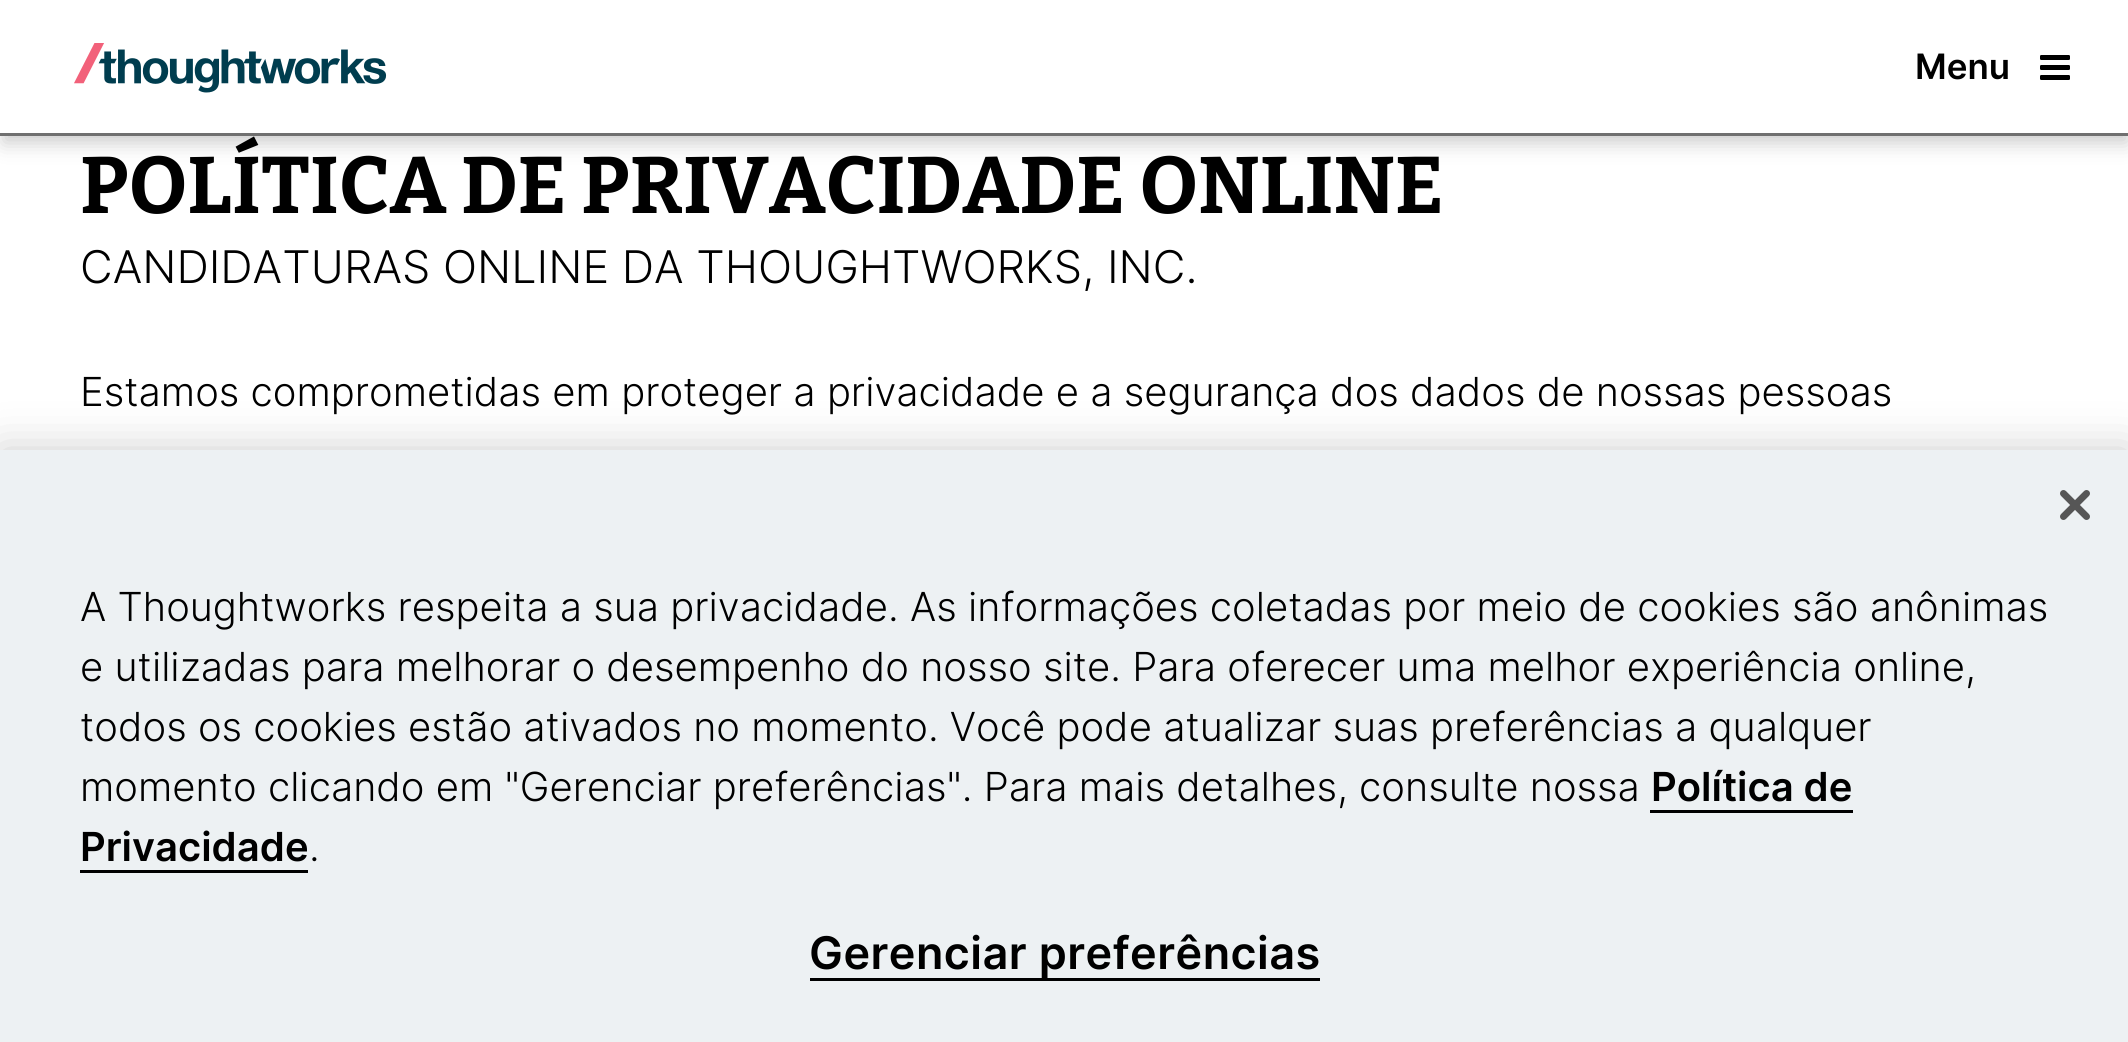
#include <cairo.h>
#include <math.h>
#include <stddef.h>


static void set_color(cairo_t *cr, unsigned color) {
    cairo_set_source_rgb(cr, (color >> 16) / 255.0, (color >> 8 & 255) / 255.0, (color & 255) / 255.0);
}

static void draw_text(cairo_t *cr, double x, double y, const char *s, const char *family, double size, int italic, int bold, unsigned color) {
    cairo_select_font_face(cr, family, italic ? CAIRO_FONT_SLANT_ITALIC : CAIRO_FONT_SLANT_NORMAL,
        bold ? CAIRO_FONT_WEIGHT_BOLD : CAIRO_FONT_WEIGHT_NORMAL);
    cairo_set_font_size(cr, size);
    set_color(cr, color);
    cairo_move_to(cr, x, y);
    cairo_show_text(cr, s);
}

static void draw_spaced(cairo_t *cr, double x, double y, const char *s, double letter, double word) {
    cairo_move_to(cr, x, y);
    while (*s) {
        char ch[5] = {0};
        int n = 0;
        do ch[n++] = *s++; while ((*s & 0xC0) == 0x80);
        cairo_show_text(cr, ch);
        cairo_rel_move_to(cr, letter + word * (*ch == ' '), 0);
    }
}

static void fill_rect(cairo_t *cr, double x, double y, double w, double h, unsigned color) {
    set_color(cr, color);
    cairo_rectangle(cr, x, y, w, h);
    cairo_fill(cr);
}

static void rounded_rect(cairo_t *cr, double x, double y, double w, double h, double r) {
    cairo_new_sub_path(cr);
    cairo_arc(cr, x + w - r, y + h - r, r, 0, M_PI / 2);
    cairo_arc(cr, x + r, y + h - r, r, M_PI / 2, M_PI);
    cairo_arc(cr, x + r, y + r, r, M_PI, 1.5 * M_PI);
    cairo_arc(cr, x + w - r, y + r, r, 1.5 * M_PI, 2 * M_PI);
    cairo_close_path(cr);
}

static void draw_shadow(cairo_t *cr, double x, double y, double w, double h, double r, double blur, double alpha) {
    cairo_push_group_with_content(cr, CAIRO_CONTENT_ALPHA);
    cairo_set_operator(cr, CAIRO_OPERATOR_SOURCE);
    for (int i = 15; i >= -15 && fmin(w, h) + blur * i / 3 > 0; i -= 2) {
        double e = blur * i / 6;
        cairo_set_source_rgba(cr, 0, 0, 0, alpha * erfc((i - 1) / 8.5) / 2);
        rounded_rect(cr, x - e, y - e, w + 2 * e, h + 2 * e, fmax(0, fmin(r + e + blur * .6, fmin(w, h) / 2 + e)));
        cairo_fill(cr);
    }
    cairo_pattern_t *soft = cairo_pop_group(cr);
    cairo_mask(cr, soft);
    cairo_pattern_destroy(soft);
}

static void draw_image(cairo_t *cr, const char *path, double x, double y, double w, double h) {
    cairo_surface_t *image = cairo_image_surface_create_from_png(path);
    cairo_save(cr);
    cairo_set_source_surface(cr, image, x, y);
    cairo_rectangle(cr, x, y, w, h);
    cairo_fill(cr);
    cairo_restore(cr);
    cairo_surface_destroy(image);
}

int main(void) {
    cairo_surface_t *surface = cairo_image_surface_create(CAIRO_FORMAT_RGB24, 2128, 1042);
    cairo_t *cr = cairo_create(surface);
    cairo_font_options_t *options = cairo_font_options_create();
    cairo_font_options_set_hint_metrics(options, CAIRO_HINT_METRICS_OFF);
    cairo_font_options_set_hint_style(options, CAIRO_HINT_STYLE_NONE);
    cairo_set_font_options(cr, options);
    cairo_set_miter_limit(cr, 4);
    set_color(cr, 0xFFFFFF);
    cairo_paint(cr);
    set_color(cr, 0x000000);
    draw_shadow(cr, 3, 13, 2125, 130, 0, 10, 0.2);
    fill_rect(cr, 0, 0, 2128, 133, 0xFFFFFF);
    fill_rect(cr, 0, 133, 2128, 3, 0x707070);
    draw_image(cr, "assets/img1.png", 74, 43, 313, 50);
    draw_text(cr, 1915, 79, "Menu", "Inter SemiBold", 35, 0, 0, 0x000000);
    draw_image(cr, "assets/img2.png", 2040, 55, 30, 25);
    draw_text(cr, 80, 213, "POLÍTICA DE PRIVACIDADE ONLINE", "Bitter Thin", 80, 0, 0, 0x000000);
    draw_text(cr, 80, 283, "CANDIDATURAS ONLINE DA THOUGHTWORKS, INC.", "Inter Light", 45, 0, 0, 0x000000);
    draw_text(cr, 80, 406, "Estamos comprometidas em proteger a privacidade e a segurança dos dados de nossas pessoas", "Inter Light", 40, 0, 0, 0x000000);
    set_color(cr, 0x000000);
    draw_shadow(cr, 0, 450, 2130, 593, 0, 22.5, 0.2);
    fill_rect(cr, 0, 450, 2128, 592, 0xEDF1F3);
    draw_image(cr, "assets/img3.png", 2060, 490, 30, 30);
    draw_text(cr, 80, 621, "A Thoughtworks respeita a sua privacidade. As informações coletadas por meio de cookies são anônimas", "Inter Light", 40, 0, 0, 0x000000);
    draw_text(cr, 80, 681, "e utilizadas para melhorar o desempenho do nosso site. Para oferecer uma melhor experiência online,", "Inter Light", 40, 0, 0, 0x000000);
    draw_text(cr, 80, 741, "todos os cookies estão ativados no momento. Você pode atualizar suas preferências a qualquer", "Inter Light", 40, 0, 0, 0x000000);
    draw_text(cr, 80, 801, "momento clicando em \"Gerenciar preferências\". Para mais detalhes, consulte nossa", "Inter Light", 40, 0, 0, 0x000000);
    draw_text(cr, 1651, 801, "Política de", "Inter SemiBold", 40, 0, 0, 0x000000);
    fill_rect(cr, 1650, 810, 203, 3, 0x000000);
    draw_text(cr, 80, 861, "Privacidade", "Inter SemiBold", 40, 0, 0, 0x000000);
    fill_rect(cr, 80, 870, 228, 3, 0x000000);
    draw_text(cr, 309, 861, ".", "Inter Light", 40, 0, 0, 0x000000);
    fill_rect(cr, 810, 978, 510, 3, 0x000000);
    cairo_select_font_face(cr, "Inter SemiBold", CAIRO_FONT_SLANT_NORMAL, CAIRO_FONT_WEIGHT_NORMAL);
    cairo_set_font_size(cr, 45);
    draw_spaced(cr, 809, 969, "Gerenciar preferências", 0.45, 0);
    cairo_surface_write_to_png(surface, "output.png");
    cairo_font_options_destroy(options);
    cairo_destroy(cr);
    cairo_surface_destroy(surface);
    return 0;
}
